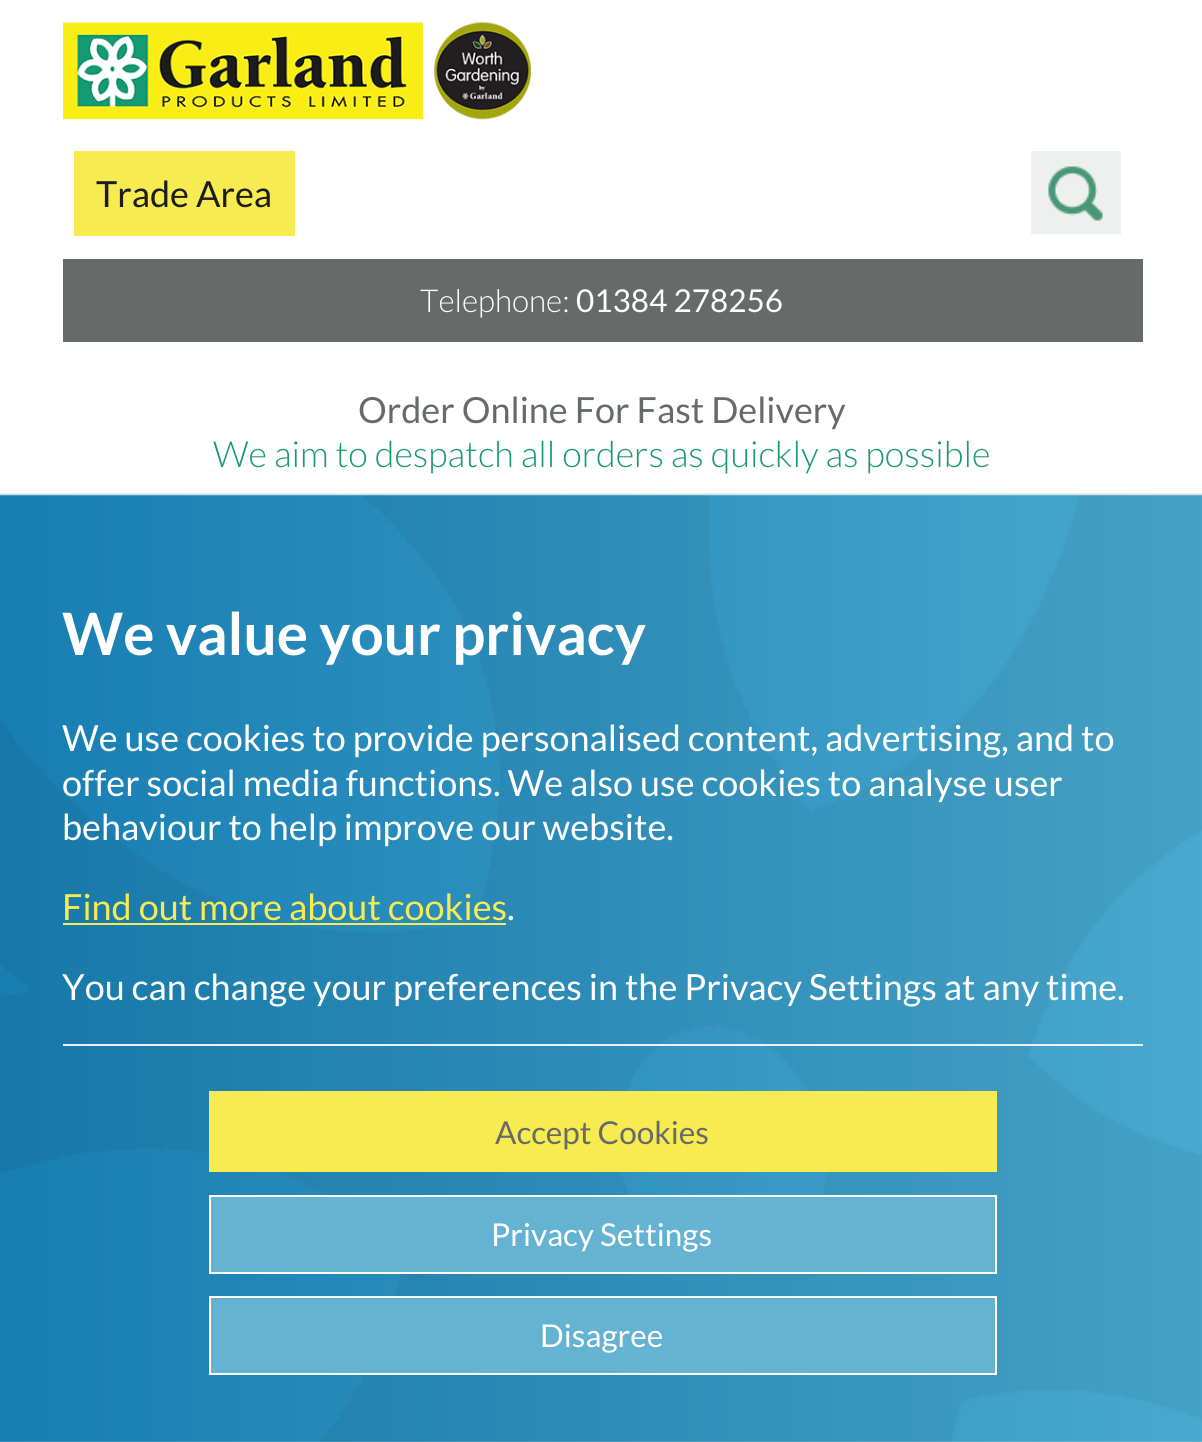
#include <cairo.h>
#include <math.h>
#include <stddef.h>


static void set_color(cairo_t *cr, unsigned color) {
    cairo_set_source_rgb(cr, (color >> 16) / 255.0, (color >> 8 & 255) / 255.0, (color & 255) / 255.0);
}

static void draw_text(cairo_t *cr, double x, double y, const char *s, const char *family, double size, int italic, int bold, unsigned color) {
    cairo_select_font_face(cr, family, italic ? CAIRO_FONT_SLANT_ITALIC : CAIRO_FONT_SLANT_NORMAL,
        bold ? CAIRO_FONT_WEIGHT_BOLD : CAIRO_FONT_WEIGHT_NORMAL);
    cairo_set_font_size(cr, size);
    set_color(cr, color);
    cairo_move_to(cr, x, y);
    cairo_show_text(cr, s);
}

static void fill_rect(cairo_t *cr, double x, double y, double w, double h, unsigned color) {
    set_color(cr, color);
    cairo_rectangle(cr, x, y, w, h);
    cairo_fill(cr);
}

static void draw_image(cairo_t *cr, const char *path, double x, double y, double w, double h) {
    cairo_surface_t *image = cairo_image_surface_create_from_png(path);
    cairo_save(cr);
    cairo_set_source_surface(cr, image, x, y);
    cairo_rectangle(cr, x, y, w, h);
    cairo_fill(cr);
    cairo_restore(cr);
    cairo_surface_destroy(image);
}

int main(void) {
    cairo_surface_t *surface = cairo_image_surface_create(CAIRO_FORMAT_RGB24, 1202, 1442);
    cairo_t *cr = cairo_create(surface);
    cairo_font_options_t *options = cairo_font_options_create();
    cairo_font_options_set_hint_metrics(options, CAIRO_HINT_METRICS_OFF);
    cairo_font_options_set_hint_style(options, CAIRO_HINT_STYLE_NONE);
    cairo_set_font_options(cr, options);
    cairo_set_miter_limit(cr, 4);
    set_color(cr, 0xFFFFFF);
    cairo_paint(cr);
    draw_image(cr, "assets/img1.png", 63, 22, 360, 98);
    draw_image(cr, "assets/img2.png", 434, 22, 97, 98);
    fill_rect(cr, 74, 151, 221, 85, 0xF7EB52);
    draw_text(cr, 96, 207, "Trade Area", "Lato", 36, 0, 0, 0x1D1D1B);
    fill_rect(cr, 63, 259, 1080, 83, 0x666B6A);
    draw_text(cr, 420, 312, "Telephone:", "Lato Light", 31.5, 0, 0, 0xFFFFFF);
    draw_text(cr, 576, 312, "01384 278256", "Lato", 31.5, 0, 0, 0xFFFFFF);
    fill_rect(cr, 1031, 151, 90, 83, 0xEEF0F0);
    draw_image(cr, "assets/img3.png", 1048, 166, 55, 55);
    draw_text(cr, 358, 423, "Order Online For Fast Delivery", "Lato", 36, 0, 0, 0x666B6A);
    draw_text(cr, 213, 467, "We aim to despatch all orders as quickly as possible", "Lato Light", 36, 0, 0, 0x189974);
    fill_rect(cr, 0, 493, 1202, 2, 0xEEF0EF);
    draw_image(cr, "assets/img4.png", 0, 494, 1202, 948);
    draw_text(cr, 62, 655, "We value your privacy", "Lato", 58.5, 0, 1, 0xFFFFFF);
    draw_text(cr, 62, 751, "We use cookies to provide personalised content, advertising, and to", "Lato", 36, 0, 0, 0xFFFFFF);
    draw_text(cr, 62, 796, "offer social media functions. We also use cookies to analyse user", "Lato", 36, 0, 0, 0xFFFFFF);
    draw_text(cr, 62, 840, "behaviour to help improve our website.", "Lato", 36, 0, 0, 0xFFFFFF);
    draw_text(cr, 62, 920, "Find out more about cookies", "Lato", 36, 0, 0, 0xF7EB52);
    fill_rect(cr, 63, 923, 443, 2, 0xF7EB52);
    draw_text(cr, 507, 920, ".", "Lato", 36, 0, 0, 0xFFFFFF);
    draw_text(cr, 62, 1000, "You can change your preferences in the Privacy Settings at any time.", "Lato", 36, 0, 0, 0xFFFFFF);
    fill_rect(cr, 63, 1044, 1080, 2, 0xEEF0EF);
    fill_rect(cr, 209, 1091, 788, 81, 0xF7EB52);
    draw_text(cr, 495, 1144, "Accept Cookies", "Lato", 31.5, 0, 0, 0x666B6A);
    set_color(cr, 0x65B3D3);
    cairo_rectangle(cr, 210, 1196, 786, 77);
    cairo_fill_preserve(cr);
    set_color(cr, 0xFFFFFF);
    cairo_stroke(cr);
    draw_text(cr, 491, 1246, "Privacy Settings", "Lato", 31.5, 0, 0, 0xFFFFFF);
    set_color(cr, 0x65B3D3);
    cairo_rectangle(cr, 210, 1297, 786, 77);
    cairo_fill_preserve(cr);
    set_color(cr, 0xFFFFFF);
    cairo_stroke(cr);
    draw_text(cr, 540, 1347, "Disagree", "Lato", 31.5, 0, 0, 0xFFFFFF);
    cairo_surface_write_to_png(surface, "output.png");
    cairo_font_options_destroy(options);
    cairo_destroy(cr);
    cairo_surface_destroy(surface);
    return 0;
}
